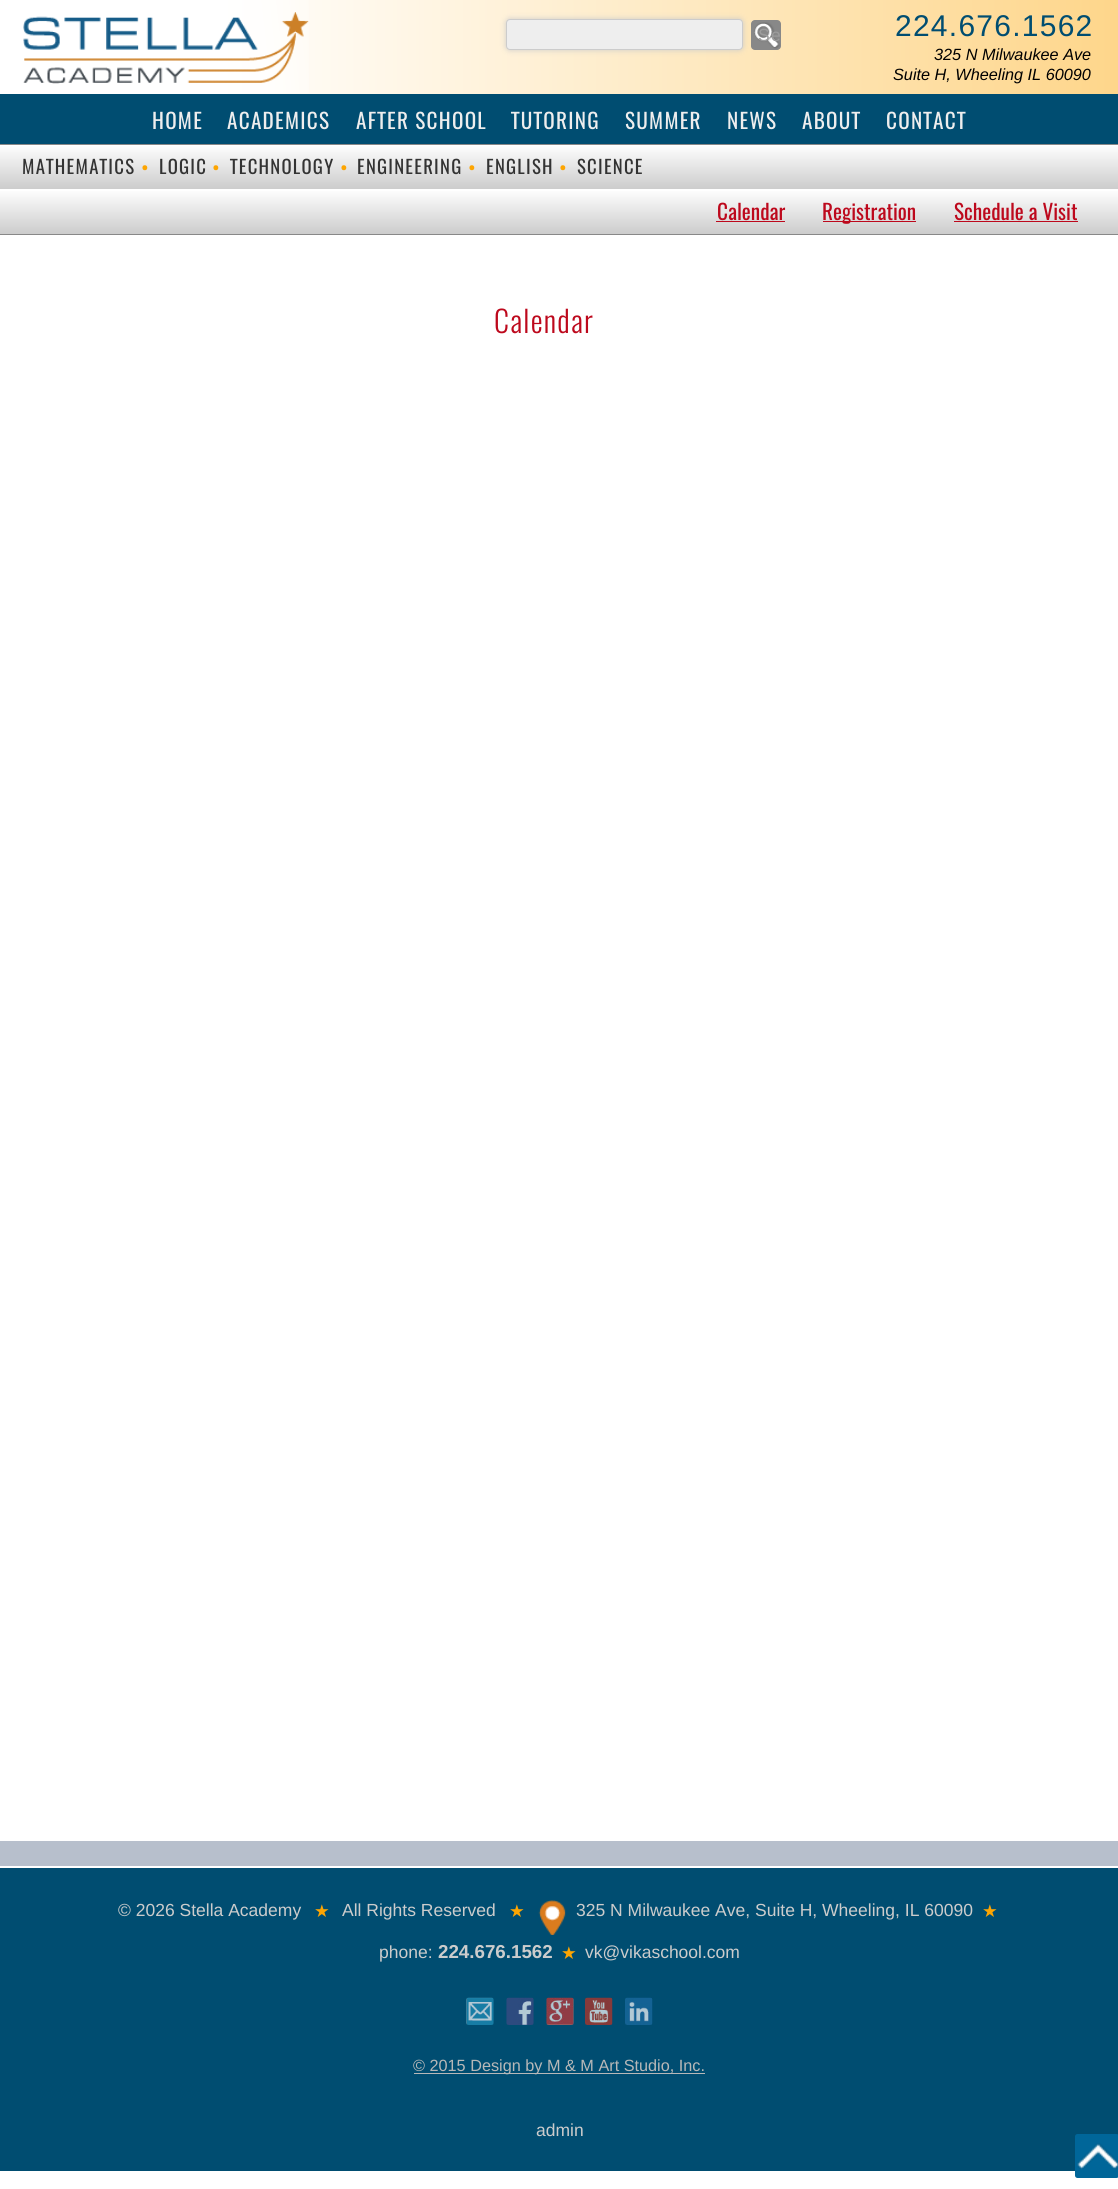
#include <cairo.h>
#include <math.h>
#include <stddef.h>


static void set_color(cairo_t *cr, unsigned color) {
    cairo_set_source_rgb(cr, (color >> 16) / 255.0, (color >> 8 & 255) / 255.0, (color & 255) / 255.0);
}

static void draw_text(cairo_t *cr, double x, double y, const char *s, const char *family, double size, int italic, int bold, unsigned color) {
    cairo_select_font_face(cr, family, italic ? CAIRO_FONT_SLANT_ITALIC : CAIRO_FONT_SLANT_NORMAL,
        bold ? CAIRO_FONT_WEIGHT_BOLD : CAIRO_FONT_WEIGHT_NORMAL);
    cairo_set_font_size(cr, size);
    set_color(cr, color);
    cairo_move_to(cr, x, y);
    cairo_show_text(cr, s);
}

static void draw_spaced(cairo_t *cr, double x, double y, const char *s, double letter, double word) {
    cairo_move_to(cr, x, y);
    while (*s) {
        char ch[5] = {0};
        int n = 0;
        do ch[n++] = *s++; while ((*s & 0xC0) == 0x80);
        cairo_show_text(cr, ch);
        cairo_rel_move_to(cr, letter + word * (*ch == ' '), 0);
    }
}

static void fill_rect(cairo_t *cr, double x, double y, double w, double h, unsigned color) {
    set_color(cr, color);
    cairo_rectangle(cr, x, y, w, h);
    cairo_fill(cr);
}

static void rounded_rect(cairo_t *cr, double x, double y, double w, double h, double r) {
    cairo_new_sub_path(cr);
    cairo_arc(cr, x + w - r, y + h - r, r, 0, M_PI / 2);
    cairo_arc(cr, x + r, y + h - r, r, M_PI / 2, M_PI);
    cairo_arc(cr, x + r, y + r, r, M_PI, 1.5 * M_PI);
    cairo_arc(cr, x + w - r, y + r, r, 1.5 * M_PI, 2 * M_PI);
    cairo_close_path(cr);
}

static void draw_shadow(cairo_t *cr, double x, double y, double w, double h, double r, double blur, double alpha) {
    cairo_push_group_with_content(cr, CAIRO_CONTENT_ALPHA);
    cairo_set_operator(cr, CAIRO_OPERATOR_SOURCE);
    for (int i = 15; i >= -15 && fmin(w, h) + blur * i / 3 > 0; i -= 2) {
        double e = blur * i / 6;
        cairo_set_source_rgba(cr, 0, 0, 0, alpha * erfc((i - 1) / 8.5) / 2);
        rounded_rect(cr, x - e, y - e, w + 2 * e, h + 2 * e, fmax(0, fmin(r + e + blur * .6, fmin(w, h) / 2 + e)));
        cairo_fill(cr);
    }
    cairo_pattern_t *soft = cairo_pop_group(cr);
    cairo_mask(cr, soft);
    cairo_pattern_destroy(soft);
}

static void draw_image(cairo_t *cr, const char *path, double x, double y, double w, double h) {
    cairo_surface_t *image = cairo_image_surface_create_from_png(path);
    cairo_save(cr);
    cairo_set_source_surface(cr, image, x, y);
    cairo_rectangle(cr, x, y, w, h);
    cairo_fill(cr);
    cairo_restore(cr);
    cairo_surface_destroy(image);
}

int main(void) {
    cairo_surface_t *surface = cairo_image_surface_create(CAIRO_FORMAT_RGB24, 1118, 2189);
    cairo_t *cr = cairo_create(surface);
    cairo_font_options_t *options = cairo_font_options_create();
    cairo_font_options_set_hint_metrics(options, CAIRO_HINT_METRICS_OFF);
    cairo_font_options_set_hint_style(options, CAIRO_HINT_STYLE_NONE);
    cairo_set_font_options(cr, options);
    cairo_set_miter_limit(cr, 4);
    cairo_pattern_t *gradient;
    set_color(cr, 0xFFFFFF);
    cairo_paint(cr);
    gradient = cairo_pattern_create_linear(125, 47, 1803, 47);
    cairo_pattern_add_color_stop_rgba(gradient, 0, 1, 1, 1, 1);
    cairo_pattern_add_color_stop_rgba(gradient, 0.05, 1, 1, 1, 1);
    cairo_pattern_add_color_stop_rgba(gradient, 0.88, 0.992, 0.753, 0.302, 1);
    cairo_pattern_add_color_stop_rgba(gradient, 1, 0.98, 0.784, 0.424, 1);
    cairo_set_source(cr, gradient);
    cairo_pattern_destroy(gradient);
    cairo_rectangle(cr, 228, 0, 890, 94);
    cairo_fill(cr);
    draw_image(cr, "assets/img1.png", 23, 0, 286, 93);
    set_color(cr, 0xCCCCCC);
    draw_shadow(cr, 506, 19, 237, 31, 4, 3, 1);
    set_color(cr, 0xEEEEEE);
    rounded_rect(cr, 506.5, 19.5, 236, 30, 3.5);
    cairo_fill_preserve(cr);
    set_color(cr, 0xCCCCCC);
    cairo_set_line_width(cr, 1);
    cairo_stroke(cr);
    set_color(cr, 0x888888);
    rounded_rect(cr, 751, 20, 30, 30, 4);
    cairo_fill(cr);
    draw_image(cr, "assets/img2.png", 754, 22, 26, 27);
    cairo_select_font_face(cr, "Liberation Sans", CAIRO_FONT_SLANT_NORMAL, CAIRO_FONT_WEIGHT_NORMAL);
    cairo_set_font_size(cr, 17.5);
    set_color(cr, 0x9C9C9C);
    draw_spaced(cr, 758, 41, "Se", 1.25, 0);
    cairo_set_font_size(cr, 30);
    set_color(cr, 0x004D71);
    draw_spaced(cr, 895, 36, "224.676.1562", 1.25, 0);
    draw_text(cr, 934, 60, "325 N Milwaukee Ave", "Liberation Sans", 16.25, 1, 0, 0x000000);
    draw_text(cr, 893, 80, "Suite H, Wheeling IL 60090", "Liberation Sans", 16.25, 1, 0, 0x000000);
    fill_rect(cr, 0, 94, 1118, 50, 0x004D71);
    cairo_select_font_face(cr, "Oswald", CAIRO_FONT_SLANT_NORMAL, CAIRO_FONT_WEIGHT_NORMAL);
    cairo_set_font_size(cr, 21.25);
    set_color(cr, 0xEEEEEE);
    draw_spaced(cr, 152, 129, "HOME", 1.25, 0);
    draw_spaced(cr, 227, 129, "ACADEMICS", 1.25, 0);
    draw_spaced(cr, 356, 129, "AFTER SCHOOL", 1.25, 0);
    draw_spaced(cr, 511, 129, "TUTORING", 1.25, 0);
    draw_spaced(cr, 625, 129, "SUMMER", 1.25, 0);
    draw_spaced(cr, 727, 129, "NEWS", 1.25, 0);
    draw_spaced(cr, 802, 129, "ABOUT", 1.25, 0);
    draw_spaced(cr, 886, 129, "CONTACT", 1.25, 0);
    gradient = cairo_pattern_create_linear(559, 144, 559, 189);
    cairo_pattern_add_color_stop_rgba(gradient, 0, 1, 1, 1, 1);
    cairo_pattern_add_color_stop_rgba(gradient, 1, 0.8, 0.8, 0.8, 1);
    cairo_set_source(cr, gradient);
    cairo_pattern_destroy(gradient);
    cairo_rectangle(cr, 0, 146, 1118, 43);
    cairo_fill(cr);
    gradient = cairo_pattern_create_linear(559, 189, 559, 234);
    cairo_pattern_add_color_stop_rgba(gradient, 0, 1, 1, 1, 1);
    cairo_pattern_add_color_stop_rgba(gradient, 1, 0.8, 0.8, 0.8, 1);
    cairo_set_source(cr, gradient);
    cairo_pattern_destroy(gradient);
    cairo_rectangle(cr, 0, 191, 1118, 43);
    cairo_fill(cr);
    fill_rect(cr, 0, 144, 1118, 1, 0x888888);
    fill_rect(cr, 0, 234, 1118, 1, 0x888888);
    cairo_set_font_size(cr, 18.75);
    set_color(cr, 0x333333);
    draw_spaced(cr, 22, 174, "MATHEMATICS", 1.25, 0);
    cairo_set_font_size(cr, 21.25);
    set_color(cr, 0xFDA502);
    draw_spaced(cr, 141, 176, "•", 4, 0);
    cairo_set_font_size(cr, 18.75);
    set_color(cr, 0x333333);
    draw_spaced(cr, 159, 174, "LOGIC", 1.25, 0);
    cairo_set_font_size(cr, 21.25);
    set_color(cr, 0xFDA502);
    draw_spaced(cr, 212, 176, "•", 4, 0);
    cairo_set_font_size(cr, 18.75);
    set_color(cr, 0x333333);
    draw_spaced(cr, 230, 174, "TECHNOLOGY", 1.25, 0);
    cairo_set_font_size(cr, 21.25);
    set_color(cr, 0xFDA502);
    draw_spaced(cr, 340, 176, "•", 4, 0);
    cairo_set_font_size(cr, 18.75);
    set_color(cr, 0x333333);
    draw_spaced(cr, 357, 174, "ENGINEERING", 1.25, 0);
    cairo_set_font_size(cr, 21.25);
    set_color(cr, 0xFDA502);
    draw_spaced(cr, 468, 176, "•", 4, 0);
    cairo_set_font_size(cr, 18.75);
    set_color(cr, 0x333333);
    draw_spaced(cr, 486, 174, "ENGLISH", 1.25, 0);
    cairo_set_font_size(cr, 21.25);
    set_color(cr, 0xFDA502);
    draw_spaced(cr, 559, 176, "•", 4, 0);
    cairo_set_font_size(cr, 18.75);
    set_color(cr, 0x333333);
    draw_spaced(cr, 577, 174, "SCIENCE", 1.25, 0);
    draw_text(cr, 717, 220, "Calendar", "Oswald", 21.25, 0, 0, 0xBD081C);
    fill_rect(cr, 716, 221, 69, 1, 0xBD081C);
    fill_rect(cr, 823, 221, 93, 1, 0xBD081C);
    draw_text(cr, 822, 220, "Registration", "Oswald", 21.25, 0, 0, 0xBD081C);
    draw_text(cr, 954, 220, "Schedule a Visit", "Oswald", 21.25, 0, 0, 0xBD081C);
    fill_rect(cr, 954, 221, 124, 1, 0xBD081C);
    cairo_select_font_face(cr, "Oswald Light", CAIRO_FONT_SLANT_NORMAL, CAIRO_FONT_WEIGHT_NORMAL);
    cairo_set_font_size(cr, 30);
    draw_spaced(cr, 494, 333, "Calendar", 1.25, 0);
    fill_rect(cr, 0, 1841, 1118, 25, 0xB7BFCC);
    fill_rect(cr, 0, 1868, 1118, 303, 0x004D71);
    draw_text(cr, 118, 1916, "© 2026 Stella Academy", "Liberation Sans", 17.5, 0, 0, 0xCCCCCC);
    cairo_select_font_face(cr, "DejaVu Sans", CAIRO_FONT_SLANT_NORMAL, CAIRO_FONT_WEIGHT_NORMAL);
    set_color(cr, 0xFDA502);
    draw_spaced(cr, 314, 1917, "★", 4, 0);
    draw_text(cr, 342, 1916, "All Rights Reserved", "Liberation Sans", 17.5, 0, 0, 0xCCCCCC);
    cairo_select_font_face(cr, "DejaVu Sans", CAIRO_FONT_SLANT_NORMAL, CAIRO_FONT_WEIGHT_NORMAL);
    set_color(cr, 0xFDA502);
    draw_spaced(cr, 509, 1917, "★", 4, 0);
    draw_image(cr, "assets/img3.png", 538, 1900, 28, 35);
    draw_text(cr, 576, 1916, "325 N Milwaukee Ave, Suite H, Wheeling, IL 60090", "Liberation Sans", 17.5, 0, 0, 0xCCCCCC);
    cairo_select_font_face(cr, "DejaVu Sans", CAIRO_FONT_SLANT_NORMAL, CAIRO_FONT_WEIGHT_NORMAL);
    set_color(cr, 0xFDA502);
    draw_spaced(cr, 982, 1917, "★", 4, 0);
    draw_text(cr, 379, 1958, "phone:", "Liberation Sans", 17.5, 0, 0, 0xCCCCCC);
    draw_text(cr, 438, 1958, "224.676.1562", "Liberation Sans", 18.75, 0, 1, 0xCCCCCC);
    cairo_select_font_face(cr, "DejaVu Sans", CAIRO_FONT_SLANT_NORMAL, CAIRO_FONT_WEIGHT_NORMAL);
    cairo_set_font_size(cr, 17.5);
    set_color(cr, 0xFDA502);
    draw_spaced(cr, 561, 1959, "★", 4, 0);
    draw_text(cr, 585, 1958, "vk@vikaschool.com", "Liberation Sans", 17.5, 0, 0, 0xCCCCCC);
    draw_image(cr, "assets/img4.png", 466, 1997, 28, 28);
    draw_image(cr, "assets/img5.png", 506, 1997, 28, 28);
    draw_image(cr, "assets/img6.png", 546, 1997, 28, 28);
    draw_image(cr, "assets/img7.png", 585, 1997, 28, 28);
    draw_image(cr, "assets/img8.png", 625, 1997, 28, 28);
    fill_rect(cr, 414, 2073, 291, 1, 0xB8B8B8);
    draw_text(cr, 413, 2071, "© 2015 Design by M & M Art Studio, Inc.", "Liberation Sans", 16.25, 0, 0, 0xB8B8B8);
    draw_text(cr, 536, 2136, "admin", "Liberation Sans", 17.5, 0, 0, 0xCCCCCC);
    set_color(cr, 0x006699);
    rounded_rect(cr, 1075, 2134, 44, 44, 2.5);
    cairo_fill(cr);
    draw_image(cr, "assets/img9.png", 1077, 2143, 41, 27);
    cairo_surface_write_to_png(surface, "output.png");
    cairo_font_options_destroy(options);
    cairo_destroy(cr);
    cairo_surface_destroy(surface);
    return 0;
}
